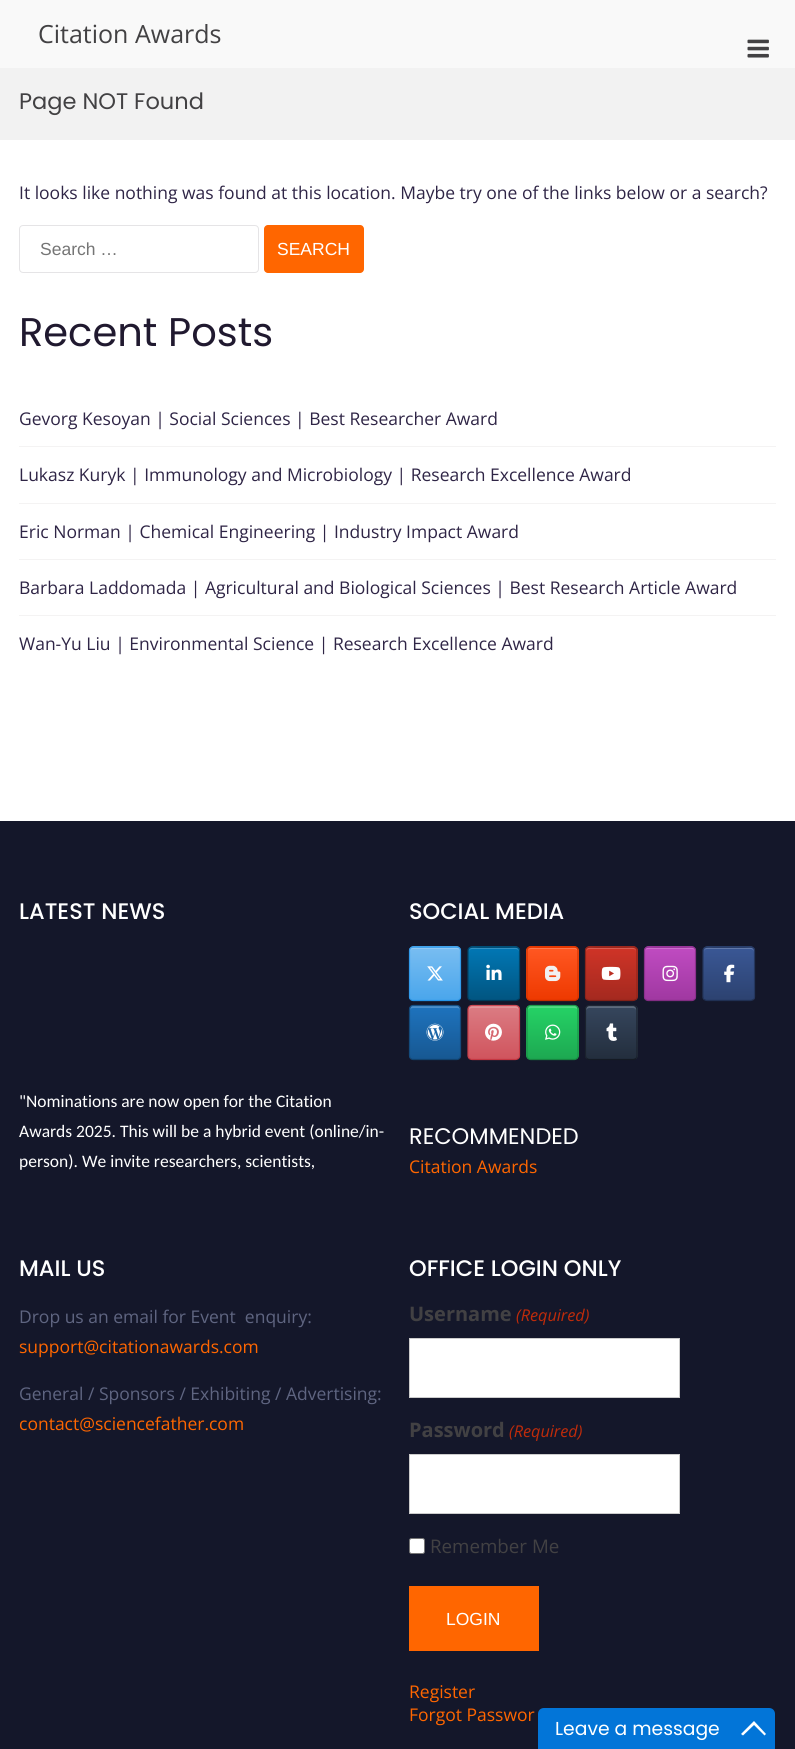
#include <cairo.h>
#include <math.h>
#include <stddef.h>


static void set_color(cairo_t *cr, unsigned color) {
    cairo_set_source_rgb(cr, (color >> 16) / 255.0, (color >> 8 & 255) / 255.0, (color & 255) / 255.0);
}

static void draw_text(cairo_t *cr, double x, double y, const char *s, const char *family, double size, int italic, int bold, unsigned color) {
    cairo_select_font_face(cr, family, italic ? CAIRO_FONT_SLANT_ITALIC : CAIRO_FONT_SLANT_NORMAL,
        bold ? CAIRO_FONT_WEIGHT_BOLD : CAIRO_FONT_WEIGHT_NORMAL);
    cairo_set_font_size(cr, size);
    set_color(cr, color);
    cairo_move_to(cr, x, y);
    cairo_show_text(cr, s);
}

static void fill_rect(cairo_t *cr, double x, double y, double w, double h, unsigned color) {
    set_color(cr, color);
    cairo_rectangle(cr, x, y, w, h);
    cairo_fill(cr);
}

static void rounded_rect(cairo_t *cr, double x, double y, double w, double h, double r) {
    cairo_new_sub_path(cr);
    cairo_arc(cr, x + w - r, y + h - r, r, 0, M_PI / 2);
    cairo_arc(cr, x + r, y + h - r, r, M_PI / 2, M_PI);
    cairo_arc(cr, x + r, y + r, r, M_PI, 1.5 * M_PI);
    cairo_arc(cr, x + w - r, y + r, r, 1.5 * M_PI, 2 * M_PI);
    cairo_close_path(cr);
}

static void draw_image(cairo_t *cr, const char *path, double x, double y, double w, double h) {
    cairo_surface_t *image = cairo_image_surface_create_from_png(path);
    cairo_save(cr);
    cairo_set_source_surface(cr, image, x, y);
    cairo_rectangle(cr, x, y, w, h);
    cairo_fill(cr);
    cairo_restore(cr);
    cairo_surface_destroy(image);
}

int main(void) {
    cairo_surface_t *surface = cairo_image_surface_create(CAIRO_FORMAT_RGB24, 795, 1749);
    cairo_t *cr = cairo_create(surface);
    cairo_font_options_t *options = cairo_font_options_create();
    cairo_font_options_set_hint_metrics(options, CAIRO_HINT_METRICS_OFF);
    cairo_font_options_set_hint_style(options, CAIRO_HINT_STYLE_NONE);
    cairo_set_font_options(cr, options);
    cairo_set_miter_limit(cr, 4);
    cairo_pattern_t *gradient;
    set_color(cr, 0xFFFFFF);
    cairo_paint(cr);
    fill_rect(cr, 0, 0, 795, 68, 0xF9F9F9);
    draw_text(cr, 38, 43, "Citation Awards", "Open Sans", 25, 0, 0, 0x424143);
    draw_image(cr, "assets/img1.png", 747, 39, 22, 19);
    fill_rect(cr, 0, 68, 795, 72, 0xF2F2F2);
    draw_text(cr, 19, 109, "Page NOT Found", "Poppins", 22.5, 0, 0, 0x424143);
    draw_text(cr, 19, 199, "It looks like nothing was found at this location. Maybe try one of the links below or a search?", "Open Sans", 17.5, 0, 0, 0x2F2546);
    rounded_rect(cr, 19.5, 225.5, 239, 47, 3.5);
    set_color(cr, 0xE5E4E6);
    cairo_set_line_width(cr, 1);
    cairo_stroke(cr);
    draw_text(cr, 40, 255, "Search …", "Liberation Sans", 17.5, 0, 0, 0x757575);
    set_color(cr, 0xFF6600);
    rounded_rect(cr, 264, 225, 100, 48, 4);
    cairo_fill(cr);
    draw_text(cr, 277, 255, "SEARCH", "Liberation Sans", 17.5, 0, 0, 0xFFFFFF);
    draw_text(cr, 19, 346, "Recent Posts", "Poppins", 40, 0, 0, 0x20192F);
    fill_rect(cr, 19, 446, 757, 1, 0xF4F3F3);
    draw_text(cr, 19, 425, "Gevorg Kesoyan | Social Sciences | Best Researcher Award", "Open Sans", 17.5, 0, 0, 0x2F2546);
    fill_rect(cr, 19, 503, 757, 1, 0xF4F3F3);
    draw_text(cr, 19, 481, "Lukasz Kuryk | Immunology and Microbiology | Research Excellence Award", "Open Sans", 17.5, 0, 0, 0x2F2546);
    fill_rect(cr, 19, 559, 757, 1, 0xF4F3F3);
    draw_text(cr, 19, 538, "Eric Norman | Chemical Engineering | Industry Impact Award", "Open Sans", 17.5, 0, 0, 0x2F2546);
    fill_rect(cr, 19, 615, 757, 1, 0xF4F3F3);
    draw_text(cr, 19, 594, "Barbara Laddomada | Agricultural and Biological Sciences | Best Research Article Award", "Open Sans", 17.5, 0, 0, 0x2F2546);
    draw_text(cr, 19, 650, "Wan-Yu Liu | Environmental Science | Research Excellence Award", "Open Sans", 17.5, 0, 0, 0x2F2546);
    fill_rect(cr, 0, 821, 795, 928, 0x14172A);
    draw_text(cr, 19, 919, "LATEST NEWS", "Poppins Medium", 22.5, 0, 0, 0xFFFFFF);
    draw_text(cr, 19, 1107, "\"Nominations are now open for the Citation", "Carlito", 17.5, 0, 0, 0xFFFFFF);
    draw_text(cr, 19, 1137, "Awards 2025. This will be a hybrid event (online/in-", "Carlito", 17.5, 0, 0, 0xFFFFFF);
    draw_text(cr, 19, 1167, "person). We invite researchers, scientists,", "Carlito", 17.5, 0, 0, 0xFFFFFF);
    draw_text(cr, 409, 919, "SOCIAL MEDIA", "Poppins Medium", 22.5, 0, 0, 0xFFFFFF);
    cairo_save(cr);
    rounded_rect(cr, 409, 946, 52, 55, 5);
    cairo_clip(cr);
    gradient = cairo_pattern_create_linear(410, 948, 410, 895);
    cairo_pattern_add_color_stop_rgba(gradient, 0, 0.29, 0.651, 0.925, 1);
    cairo_pattern_add_color_stop_rgba(gradient, 1, 0.471, 0.741, 0.945, 1);
    cairo_set_source(cr, gradient);
    cairo_pattern_destroy(gradient);
    cairo_rectangle(cr, 409, 946, 52, 2);
    cairo_fill(cr);
    gradient = cairo_pattern_create_linear(410, 1000, 410, 948);
    cairo_pattern_add_color_stop_rgba(gradient, 0, 0.29, 0.651, 0.925, 1);
    cairo_pattern_add_color_stop_rgba(gradient, 1, 0.471, 0.741, 0.945, 1);
    cairo_set_source(cr, gradient);
    cairo_pattern_destroy(gradient);
    cairo_rectangle(cr, 409, 948, 52, 52);
    cairo_fill(cr);
    cairo_restore(cr);
    set_color(cr, 0x93CAF4);
    cairo_new_path(cr);
    cairo_move_to(cr, 413, 949);
    cairo_line_to(cr, 457, 949);
    cairo_curve_to(cr, 459, 949, 460, 950, 460, 952);
    cairo_curve_to(cr, 460, 946, 454, 948, 450, 948);
    cairo_line_to(cr, 420, 948);
    cairo_curve_to(cr, 416, 948, 410, 946, 410, 952);
    cairo_curve_to(cr, 410, 950, 411, 949, 413, 949);
    cairo_close_path(cr);
    cairo_fill(cr);
    cairo_new_path(cr);
    cairo_move_to(cr, 410.5, 948);
    cairo_curve_to(cr, 411, 947.5, 412, 947, 413, 947);
    cairo_line_to(cr, 457, 947);
    cairo_curve_to(cr, 458, 947, 459, 947.5, 459.5, 948);
    set_color(cr, 0x3CA0EB);
    cairo_set_line_width(cr, 1.2);
    cairo_stroke(cr);
    cairo_new_path(cr);
    cairo_move_to(cr, 459.5, 948);
    cairo_curve_to(cr, 460, 948.5, 460.5, 949.5, 460.5, 950.5);
    cairo_line_to(cr, 460.5, 997);
    cairo_curve_to(cr, 460.5, 998, 460, 999, 459.5, 999.5);
    set_color(cr, 0x339BEA);
    cairo_stroke(cr);
    cairo_new_path(cr);
    cairo_move_to(cr, 459.5, 999.5);
    cairo_curve_to(cr, 459, 1000, 458, 1000.5, 457, 1000.5);
    cairo_line_to(cr, 413, 1000.5);
    cairo_curve_to(cr, 412, 1000.5, 411, 1000, 410.5, 999.5);
    set_color(cr, 0x2594E8);
    cairo_stroke(cr);
    cairo_new_path(cr);
    cairo_move_to(cr, 410.5, 999.5);
    cairo_curve_to(cr, 410, 999, 409.5, 998, 409.5, 997);
    cairo_line_to(cr, 409.5, 950.5);
    cairo_curve_to(cr, 409.5, 949.5, 410, 948.5, 410.5, 948);
    set_color(cr, 0x339BEA);
    cairo_stroke(cr);
    draw_image(cr, "assets/img2.png", 427, 966, 16, 15);
    cairo_save(cr);
    rounded_rect(cr, 468, 946, 52, 55, 5);
    cairo_clip(cr);
    gradient = cairo_pattern_create_linear(469, 948, 469, 895);
    cairo_pattern_add_color_stop_rgba(gradient, 0, 0.004, 0.333, 0.506, 1);
    cairo_pattern_add_color_stop_rgba(gradient, 1, 0.004, 0.467, 0.706, 1);
    cairo_set_source(cr, gradient);
    cairo_pattern_destroy(gradient);
    cairo_rectangle(cr, 468, 946, 52, 2);
    cairo_fill(cr);
    gradient = cairo_pattern_create_linear(469, 1000, 469, 948);
    cairo_pattern_add_color_stop_rgba(gradient, 0, 0.004, 0.333, 0.506, 1);
    cairo_pattern_add_color_stop_rgba(gradient, 1, 0.004, 0.467, 0.706, 1);
    cairo_set_source(cr, gradient);
    cairo_pattern_destroy(gradient);
    cairo_rectangle(cr, 468, 948, 52, 52);
    cairo_fill(cr);
    cairo_restore(cr);
    set_color(cr, 0x3492C3);
    cairo_new_path(cr);
    cairo_move_to(cr, 472, 949);
    cairo_line_to(cr, 516, 949);
    cairo_curve_to(cr, 517, 949, 519, 950, 519, 952);
    cairo_curve_to(cr, 519, 946, 513, 948, 509, 948);
    cairo_line_to(cr, 479, 948);
    cairo_curve_to(cr, 475, 948, 469, 946, 469, 952);
    cairo_curve_to(cr, 469, 950, 470, 949, 472, 949);
    cairo_close_path(cr);
    cairo_fill(cr);
    cairo_new_path(cr);
    cairo_move_to(cr, 469, 948);
    cairo_curve_to(cr, 470, 947.5, 471, 947, 472, 947);
    cairo_line_to(cr, 515.5, 947);
    cairo_curve_to(cr, 516.5, 947, 517.5, 947.5, 518.5, 948);
    set_color(cr, 0x014B72);
    cairo_stroke(cr);
    cairo_new_path(cr);
    cairo_move_to(cr, 518.5, 948);
    cairo_curve_to(cr, 519, 948.5, 519.5, 949.5, 519.5, 950.5);
    cairo_line_to(cr, 519.5, 997);
    cairo_curve_to(cr, 519.5, 998, 519, 999, 518.5, 999.5);
    set_color(cr, 0x014568);
    cairo_stroke(cr);
    cairo_new_path(cr);
    cairo_move_to(cr, 518.5, 999.5);
    cairo_curve_to(cr, 517.5, 1000, 516.5, 1000.5, 515.5, 1000.5);
    cairo_line_to(cr, 472, 1000.5);
    cairo_curve_to(cr, 471, 1000.5, 470, 1000, 469, 999.5);
    set_color(cr, 0x003B59);
    cairo_stroke(cr);
    cairo_new_path(cr);
    cairo_move_to(cr, 469, 999.5);
    cairo_curve_to(cr, 468.5, 999, 468, 998, 468, 997);
    cairo_line_to(cr, 468, 950.5);
    cairo_curve_to(cr, 468, 949.5, 468.5, 948.5, 469, 948);
    set_color(cr, 0x014568);
    cairo_stroke(cr);
    draw_image(cr, "assets/img3.png", 486, 964, 16, 16);
    cairo_save(cr);
    rounded_rect(cr, 526, 946, 53, 55, 5);
    cairo_clip(cr);
    gradient = cairo_pattern_create_linear(528, 948, 528, 895);
    cairo_pattern_add_color_stop_rgba(gradient, 0, 0.933, 0.224, 0, 1);
    cairo_pattern_add_color_stop_rgba(gradient, 1, 1, 0.341, 0.133, 1);
    cairo_set_source(cr, gradient);
    cairo_pattern_destroy(gradient);
    cairo_rectangle(cr, 526, 946, 53, 2);
    cairo_fill(cr);
    gradient = cairo_pattern_create_linear(528, 1000, 528, 948);
    cairo_pattern_add_color_stop_rgba(gradient, 0, 0.933, 0.224, 0, 1);
    cairo_pattern_add_color_stop_rgba(gradient, 1, 1, 0.341, 0.133, 1);
    cairo_set_source(cr, gradient);
    cairo_pattern_destroy(gradient);
    cairo_rectangle(cr, 526, 948, 53, 52);
    cairo_fill(cr);
    cairo_restore(cr);
    set_color(cr, 0xFF794E);
    cairo_new_path(cr);
    cairo_move_to(cr, 531, 949);
    cairo_line_to(cr, 574, 949);
    cairo_curve_to(cr, 576, 949, 578, 950, 578, 952);
    cairo_curve_to(cr, 578, 946, 572, 948, 568, 948);
    cairo_line_to(cr, 538, 948);
    cairo_curve_to(cr, 534, 948, 528, 946, 528, 952);
    cairo_curve_to(cr, 528, 950, 529, 949, 531, 949);
    cairo_close_path(cr);
    cairo_fill(cr);
    cairo_new_path(cr);
    cairo_move_to(cr, 528, 948);
    cairo_curve_to(cr, 528.5, 947.5, 529.5, 947, 530.5, 947);
    cairo_line_to(cr, 574.5, 947);
    cairo_curve_to(cr, 575.5, 947, 576.5, 947.5, 577, 948);
    set_color(cr, 0xDF3500);
    cairo_stroke(cr);
    cairo_new_path(cr);
    cairo_move_to(cr, 577, 948);
    cairo_curve_to(cr, 577.5, 948.5, 578, 949.5, 578, 950.5);
    cairo_line_to(cr, 578, 997);
    cairo_curve_to(cr, 578, 998, 577.5, 999, 577, 999.5);
    set_color(cr, 0xD43300);
    cairo_stroke(cr);
    cairo_new_path(cr);
    cairo_move_to(cr, 577, 999.5);
    cairo_curve_to(cr, 576.5, 1000, 575.5, 1000.5, 574.5, 1000.5);
    cairo_line_to(cr, 530.5, 1000.5);
    cairo_curve_to(cr, 529.5, 1000.5, 528.5, 1000, 528, 999.5);
    set_color(cr, 0xC52F00);
    cairo_stroke(cr);
    cairo_new_path(cr);
    cairo_move_to(cr, 528, 999.5);
    cairo_curve_to(cr, 527.5, 999, 527, 998, 527, 997);
    cairo_line_to(cr, 527, 950.5);
    cairo_curve_to(cr, 527, 949.5, 527.5, 948.5, 528, 948);
    set_color(cr, 0xD43300);
    cairo_stroke(cr);
    draw_image(cr, "assets/img4.png", 545, 965, 16, 17);
    cairo_save(cr);
    rounded_rect(cr, 585, 946, 53, 55, 5);
    cairo_clip(cr);
    gradient = cairo_pattern_create_linear(586, 948, 586, 895);
    cairo_pattern_add_color_stop_rgba(gradient, 0, 0.643, 0.161, 0.122, 1);
    cairo_pattern_add_color_stop_rgba(gradient, 1, 0.812, 0.204, 0.153, 1);
    cairo_set_source(cr, gradient);
    cairo_pattern_destroy(gradient);
    cairo_rectangle(cr, 585, 946, 53, 2);
    cairo_fill(cr);
    gradient = cairo_pattern_create_linear(586, 1000, 586, 948);
    cairo_pattern_add_color_stop_rgba(gradient, 0, 0.643, 0.161, 0.122, 1);
    cairo_pattern_add_color_stop_rgba(gradient, 1, 0.812, 0.204, 0.153, 1);
    cairo_set_source(cr, gradient);
    cairo_pattern_destroy(gradient);
    cairo_rectangle(cr, 585, 948, 53, 52);
    cairo_fill(cr);
    cairo_restore(cr);
    set_color(cr, 0xD95D52);
    cairo_new_path(cr);
    cairo_move_to(cr, 589, 949);
    cairo_line_to(cr, 633, 949);
    cairo_curve_to(cr, 635, 949, 636, 950, 636, 952);
    cairo_curve_to(cr, 636, 946, 630, 948, 626, 948);
    cairo_line_to(cr, 596, 948);
    cairo_curve_to(cr, 592, 948, 586, 946, 586, 952);
    cairo_curve_to(cr, 586, 950, 588, 949, 589, 949);
    cairo_close_path(cr);
    cairo_fill(cr);
    cairo_new_path(cr);
    cairo_move_to(cr, 586.5, 948);
    cairo_curve_to(cr, 587.5, 947.5, 588.5, 947, 589.5, 947);
    cairo_line_to(cr, 633, 947);
    cairo_curve_to(cr, 634, 947, 635, 947.5, 636, 948);
    set_color(cr, 0x97261C);
    cairo_stroke(cr);
    cairo_new_path(cr);
    cairo_move_to(cr, 636, 948);
    cairo_curve_to(cr, 636.5, 948.5, 637, 949.5, 637, 950.5);
    cairo_line_to(cr, 637, 997);
    cairo_curve_to(cr, 637, 998, 636.5, 999, 636, 999.5);
    set_color(cr, 0x8F241B);
    cairo_stroke(cr);
    cairo_new_path(cr);
    cairo_move_to(cr, 636, 999.5);
    cairo_curve_to(cr, 635, 1000, 634, 1000.5, 633, 1000.5);
    cairo_line_to(cr, 589.5, 1000.5);
    cairo_curve_to(cr, 588.5, 1000.5, 587.5, 1000, 586.5, 999.5);
    set_color(cr, 0x822118);
    cairo_stroke(cr);
    cairo_new_path(cr);
    cairo_move_to(cr, 586.5, 999.5);
    cairo_curve_to(cr, 586, 999, 585.5, 998, 585.5, 997);
    cairo_line_to(cr, 585.5, 950.5);
    cairo_curve_to(cr, 585.5, 949.5, 586, 948.5, 586.5, 948);
    set_color(cr, 0x8F241B);
    cairo_stroke(cr);
    draw_image(cr, "assets/img5.png", 601, 966, 20, 14);
    cairo_save(cr);
    rounded_rect(cr, 644, 946, 52, 55, 5);
    cairo_clip(cr);
    gradient = cairo_pattern_create_linear(645, 948, 645, 895);
    cairo_pattern_add_color_stop_rgba(gradient, 0, 0.627, 0.22, 0.631, 1);
    cairo_pattern_add_color_stop_rgba(gradient, 1, 0.749, 0.294, 0.757, 1);
    cairo_set_source(cr, gradient);
    cairo_pattern_destroy(gradient);
    cairo_rectangle(cr, 644, 946, 52, 2);
    cairo_fill(cr);
    gradient = cairo_pattern_create_linear(645, 1000, 645, 948);
    cairo_pattern_add_color_stop_rgba(gradient, 0, 0.627, 0.22, 0.631, 1);
    cairo_pattern_add_color_stop_rgba(gradient, 1, 0.749, 0.294, 0.757, 1);
    cairo_set_source(cr, gradient);
    cairo_pattern_destroy(gradient);
    cairo_rectangle(cr, 644, 948, 52, 52);
    cairo_fill(cr);
    cairo_restore(cr);
    set_color(cr, 0xCC6FCD);
    cairo_new_path(cr);
    cairo_move_to(cr, 648, 949);
    cairo_line_to(cr, 692, 949);
    cairo_curve_to(cr, 694, 949, 695, 950, 695, 952);
    cairo_curve_to(cr, 695, 946, 689, 948, 685, 948);
    cairo_line_to(cr, 655, 948);
    cairo_curve_to(cr, 651, 948, 645, 946, 645, 952);
    cairo_curve_to(cr, 645, 950, 646, 949, 648, 949);
    cairo_close_path(cr);
    cairo_fill(cr);
    cairo_new_path(cr);
    cairo_move_to(cr, 645.5, 948);
    cairo_curve_to(cr, 646, 947.5, 647, 947, 648, 947);
    cairo_line_to(cr, 692, 947);
    cairo_curve_to(cr, 693, 947, 694, 947.5, 694.5, 948);
    set_color(cr, 0x943496);
    cairo_stroke(cr);
    cairo_new_path(cr);
    cairo_move_to(cr, 694.5, 948);
    cairo_curve_to(cr, 695, 948.5, 695.5, 949.5, 695.5, 950.5);
    cairo_line_to(cr, 695.5, 997);
    cairo_curve_to(cr, 695.5, 998, 695, 999, 694.5, 999.5);
    set_color(cr, 0x8D318E);
    cairo_stroke(cr);
    cairo_new_path(cr);
    cairo_move_to(cr, 694.5, 999.5);
    cairo_curve_to(cr, 694, 1000, 693, 1000.5, 692, 1000.5);
    cairo_line_to(cr, 648, 1000.5);
    cairo_curve_to(cr, 647, 1000.5, 646, 1000, 645.5, 999.5);
    set_color(cr, 0x822D83);
    cairo_stroke(cr);
    cairo_new_path(cr);
    cairo_move_to(cr, 645.5, 999.5);
    cairo_curve_to(cr, 645, 999, 644.5, 998, 644.5, 997);
    cairo_line_to(cr, 644.5, 950.5);
    cairo_curve_to(cr, 644.5, 949.5, 645, 948.5, 645.5, 948);
    set_color(cr, 0x8D318E);
    cairo_stroke(cr);
    draw_image(cr, "assets/img6.png", 662, 965, 16, 17);
    cairo_save(cr);
    rounded_rect(cr, 703, 946, 52, 55, 5);
    cairo_clip(cr);
    gradient = cairo_pattern_create_linear(704, 948, 704, 895);
    cairo_pattern_add_color_stop_rgba(gradient, 0, 0.173, 0.259, 0.439, 1);
    cairo_pattern_add_color_stop_rgba(gradient, 1, 0.227, 0.341, 0.584, 1);
    cairo_set_source(cr, gradient);
    cairo_pattern_destroy(gradient);
    cairo_rectangle(cr, 703, 946, 52, 2);
    cairo_fill(cr);
    gradient = cairo_pattern_create_linear(704, 1000, 704, 948);
    cairo_pattern_add_color_stop_rgba(gradient, 0, 0.173, 0.259, 0.439, 1);
    cairo_pattern_add_color_stop_rgba(gradient, 1, 0.227, 0.341, 0.584, 1);
    cairo_set_source(cr, gradient);
    cairo_pattern_destroy(gradient);
    cairo_rectangle(cr, 703, 948, 52, 52);
    cairo_fill(cr);
    cairo_restore(cr);
    set_color(cr, 0x6179AA);
    cairo_new_path(cr);
    cairo_move_to(cr, 707, 949);
    cairo_line_to(cr, 751, 949);
    cairo_curve_to(cr, 752, 949, 754, 950, 754, 952);
    cairo_curve_to(cr, 754, 946, 748, 948, 744, 948);
    cairo_line_to(cr, 714, 948);
    cairo_curve_to(cr, 710, 948, 704, 946, 704, 952);
    cairo_curve_to(cr, 704, 950, 705, 949, 707, 949);
    cairo_close_path(cr);
    cairo_fill(cr);
    cairo_new_path(cr);
    cairo_move_to(cr, 704, 948);
    cairo_curve_to(cr, 705, 947.5, 706, 947, 707, 947);
    cairo_line_to(cr, 750.5, 947);
    cairo_curve_to(cr, 751.5, 947, 752.5, 947.5, 753.5, 948);
    set_color(cr, 0x273B65);
    cairo_stroke(cr);
    cairo_new_path(cr);
    cairo_move_to(cr, 753.5, 948);
    cairo_curve_to(cr, 754, 948.5, 754.5, 949.5, 754.5, 950.5);
    cairo_line_to(cr, 754.5, 997);
    cairo_curve_to(cr, 754.5, 998, 754, 999, 753.5, 999.5);
    set_color(cr, 0x25375E);
    cairo_stroke(cr);
    cairo_new_path(cr);
    cairo_move_to(cr, 753.5, 999.5);
    cairo_curve_to(cr, 752.5, 1000, 751.5, 1000.5, 750.5, 1000.5);
    cairo_line_to(cr, 707, 1000.5);
    cairo_curve_to(cr, 706, 1000.5, 705, 1000, 704, 999.5);
    set_color(cr, 0x203053);
    cairo_stroke(cr);
    cairo_new_path(cr);
    cairo_move_to(cr, 704, 999.5);
    cairo_curve_to(cr, 703.5, 999, 703, 998, 703, 997);
    cairo_line_to(cr, 703, 950.5);
    cairo_curve_to(cr, 703, 949.5, 703.5, 948.5, 704, 948);
    set_color(cr, 0x25375E);
    cairo_stroke(cr);
    draw_image(cr, "assets/img7.png", 724, 964, 11, 19);
    cairo_save(cr);
    rounded_rect(cr, 409, 1005, 52, 55, 5);
    cairo_clip(cr);
    gradient = cairo_pattern_create_linear(410, 1059, 410, 1006);
    cairo_pattern_add_color_stop_rgba(gradient, 0, 0.09, 0.345, 0.573, 1);
    cairo_pattern_add_color_stop_rgba(gradient, 1, 0.118, 0.451, 0.745, 1);
    cairo_set_source(cr, gradient);
    cairo_pattern_destroy(gradient);
    cairo_rectangle(cr, 409, 1006, 52, 53);
    cairo_fill(cr);
    cairo_restore(cr);
    set_color(cr, 0x4B8FCB);
    cairo_new_path(cr);
    cairo_move_to(cr, 413, 1008);
    cairo_line_to(cr, 457, 1008);
    cairo_curve_to(cr, 459, 1008, 460, 1009, 460, 1011);
    cairo_curve_to(cr, 460, 1004, 456, 1006, 450, 1006);
    cairo_line_to(cr, 420, 1006);
    cairo_curve_to(cr, 414, 1006, 410, 1004, 410, 1011);
    cairo_curve_to(cr, 410, 1009, 411, 1008, 413, 1008);
    cairo_close_path(cr);
    cairo_fill(cr);
    cairo_new_path(cr);
    cairo_move_to(cr, 410.5, 1006.5);
    cairo_curve_to(cr, 411, 1006, 412, 1005.5, 413, 1005.5);
    cairo_line_to(cr, 457, 1005.5);
    cairo_curve_to(cr, 458, 1005.5, 459, 1006, 459.5, 1006.5);
    set_color(cr, 0x155085);
    cairo_stroke(cr);
    cairo_new_path(cr);
    cairo_move_to(cr, 459.5, 1006.5);
    cairo_curve_to(cr, 460, 1007.5, 460.5, 1008.5, 460.5, 1009.5);
    cairo_line_to(cr, 460.5, 1055.5);
    cairo_curve_to(cr, 460.5, 1056.5, 460, 1057.5, 459.5, 1058.5);
    set_color(cr, 0x144B7C);
    cairo_stroke(cr);
    cairo_new_path(cr);
    cairo_move_to(cr, 459.5, 1058.5);
    cairo_curve_to(cr, 459, 1059, 458, 1059.5, 457, 1059.5);
    cairo_line_to(cr, 413, 1059.5);
    cairo_curve_to(cr, 412, 1059.5, 411, 1059, 410.5, 1058.5);
    set_color(cr, 0x11436F);
    cairo_stroke(cr);
    cairo_new_path(cr);
    cairo_move_to(cr, 410.5, 1058.5);
    cairo_curve_to(cr, 410, 1057.5, 409.5, 1056.5, 409.5, 1055.5);
    cairo_line_to(cr, 409.5, 1009.5);
    cairo_curve_to(cr, 409.5, 1008.5, 410, 1007.5, 410.5, 1006.5);
    set_color(cr, 0x144B7C);
    cairo_stroke(cr);
    draw_image(cr, "assets/img8.png", 426, 1023, 18, 18);
    cairo_save(cr);
    rounded_rect(cr, 468, 1005, 52, 55, 5);
    cairo_clip(cr);
    gradient = cairo_pattern_create_linear(469, 1059, 469, 1006);
    cairo_pattern_add_color_stop_rgba(gradient, 0, 0.816, 0.329, 0.365, 1);
    cairo_pattern_add_color_stop_rgba(gradient, 1, 0.859, 0.486, 0.514, 1);
    cairo_set_source(cr, gradient);
    cairo_pattern_destroy(gradient);
    cairo_rectangle(cr, 468, 1006, 52, 53);
    cairo_fill(cr);
    cairo_restore(cr);
    set_color(cr, 0xE2969B);
    cairo_new_path(cr);
    cairo_move_to(cr, 472, 1008);
    cairo_line_to(cr, 516, 1008);
    cairo_curve_to(cr, 517, 1008, 519, 1009, 519, 1011);
    cairo_curve_to(cr, 519, 1004, 515, 1006, 509, 1006);
    cairo_line_to(cr, 479, 1006);
    cairo_curve_to(cr, 473, 1006, 469, 1004, 469, 1011);
    cairo_curve_to(cr, 469, 1009, 470, 1008, 472, 1008);
    cairo_close_path(cr);
    cairo_fill(cr);
    cairo_new_path(cr);
    cairo_move_to(cr, 469, 1006.5);
    cairo_curve_to(cr, 470, 1006, 471, 1005.5, 472, 1005.5);
    cairo_line_to(cr, 515.5, 1005.5);
    cairo_curve_to(cr, 516.5, 1005.5, 517.5, 1006, 518.5, 1006.5);
    set_color(cr, 0xCD4852);
    cairo_stroke(cr);
    cairo_new_path(cr);
    cairo_move_to(cr, 518.5, 1006.5);
    cairo_curve_to(cr, 519, 1007.5, 519.5, 1008.5, 519.5, 1009.5);
    cairo_line_to(cr, 519.5, 1055.5);
    cairo_curve_to(cr, 519.5, 1056.5, 519, 1057.5, 518.5, 1058.5);
    set_color(cr, 0xCB404A);
    cairo_stroke(cr);
    cairo_new_path(cr);
    cairo_move_to(cr, 518.5, 1058.5);
    cairo_curve_to(cr, 517.5, 1059, 516.5, 1059.5, 515.5, 1059.5);
    cairo_line_to(cr, 472, 1059.5);
    cairo_curve_to(cr, 471, 1059.5, 470, 1059, 469, 1058.5);
    set_color(cr, 0xC53641);
    cairo_stroke(cr);
    cairo_new_path(cr);
    cairo_move_to(cr, 469, 1058.5);
    cairo_curve_to(cr, 468.5, 1057.5, 468, 1056.5, 468, 1055.5);
    cairo_line_to(cr, 468, 1009.5);
    cairo_curve_to(cr, 468, 1008.5, 468.5, 1007.5, 469, 1006.5);
    set_color(cr, 0xCB404A);
    cairo_stroke(cr);
    draw_image(cr, "assets/img9.png", 485, 1023, 17, 18);
    cairo_save(cr);
    rounded_rect(cr, 526, 1005, 53, 55, 5);
    cairo_clip(cr);
    gradient = cairo_pattern_create_linear(528, 1059, 528, 1006);
    cairo_pattern_add_color_stop_rgba(gradient, 0, 0.114, 0.659, 0.318, 1);
    cairo_pattern_add_color_stop_rgba(gradient, 1, 0.145, 0.827, 0.4, 1);
    cairo_set_source(cr, gradient);
    cairo_pattern_destroy(gradient);
    cairo_rectangle(cr, 526, 1006, 53, 53);
    cairo_fill(cr);
    cairo_restore(cr);
    set_color(cr, 0x51DB84);
    cairo_new_path(cr);
    cairo_move_to(cr, 531, 1008);
    cairo_line_to(cr, 574, 1008);
    cairo_curve_to(cr, 576, 1008, 578, 1009, 578, 1011);
    cairo_curve_to(cr, 578, 1004, 574, 1006, 568, 1006);
    cairo_line_to(cr, 538, 1006);
    cairo_curve_to(cr, 532, 1006, 528, 1004, 528, 1011);
    cairo_curve_to(cr, 528, 1009, 529, 1008, 531, 1008);
    cairo_close_path(cr);
    cairo_fill(cr);
    cairo_new_path(cr);
    cairo_move_to(cr, 528, 1006.5);
    cairo_curve_to(cr, 528.5, 1006, 529.5, 1005.5, 530.5, 1005.5);
    cairo_line_to(cr, 574.5, 1005.5);
    cairo_curve_to(cr, 575.5, 1005.5, 576.5, 1006, 577, 1006.5);
    set_color(cr, 0x1B9B4B);
    cairo_stroke(cr);
    cairo_new_path(cr);
    cairo_move_to(cr, 577, 1006.5);
    cairo_curve_to(cr, 577.5, 1007.5, 578, 1008.5, 578, 1009.5);
    cairo_line_to(cr, 578, 1055.5);
    cairo_curve_to(cr, 578, 1056.5, 577.5, 1057.5, 577, 1058.5);
    set_color(cr, 0x1A9247);
    cairo_stroke(cr);
    cairo_new_path(cr);
    cairo_move_to(cr, 577, 1058.5);
    cairo_curve_to(cr, 576.5, 1059, 575.5, 1059.5, 574.5, 1059.5);
    cairo_line_to(cr, 530.5, 1059.5);
    cairo_curve_to(cr, 529.5, 1059.5, 528.5, 1059, 528, 1058.5);
    set_color(cr, 0x178540);
    cairo_stroke(cr);
    cairo_new_path(cr);
    cairo_move_to(cr, 528, 1058.5);
    cairo_curve_to(cr, 527.5, 1057.5, 527, 1056.5, 527, 1055.5);
    cairo_line_to(cr, 527, 1009.5);
    cairo_curve_to(cr, 527, 1008.5, 527.5, 1007.5, 528, 1006.5);
    set_color(cr, 0x1A9247);
    cairo_stroke(cr);
    draw_image(cr, "assets/img10.png", 545, 1024, 16, 16);
    cairo_save(cr);
    rounded_rect(cr, 585, 1005, 53, 55, 5);
    cairo_clip(cr);
    gradient = cairo_pattern_create_linear(586, 1059, 586, 1006);
    cairo_pattern_add_color_stop_rgba(gradient, 0, 0.137, 0.18, 0.239, 1);
    cairo_pattern_add_color_stop_rgba(gradient, 1, 0.212, 0.275, 0.365, 1);
    cairo_set_source(cr, gradient);
    cairo_pattern_destroy(gradient);
    cairo_rectangle(cr, 585, 1006, 53, 53);
    cairo_fill(cr);
    cairo_restore(cr);
    set_color(cr, 0x5E6B7D);
    cairo_new_path(cr);
    cairo_move_to(cr, 589, 1008);
    cairo_line_to(cr, 633, 1008);
    cairo_curve_to(cr, 635, 1008, 636, 1009, 636, 1011);
    cairo_curve_to(cr, 636, 1004, 632, 1006, 626, 1006);
    cairo_line_to(cr, 596, 1006);
    cairo_curve_to(cr, 590, 1006, 586, 1004, 586, 1011);
    cairo_curve_to(cr, 586, 1009, 588, 1008, 589, 1008);
    cairo_close_path(cr);
    cairo_fill(cr);
    cairo_new_path(cr);
    cairo_move_to(cr, 586.5, 1006.5);
    cairo_curve_to(cr, 587.5, 1006, 588.5, 1005.5, 589.5, 1005.5);
    cairo_line_to(cr, 633, 1005.5);
    cairo_curve_to(cr, 634, 1005.5, 635, 1006, 636, 1006.5);
    set_color(cr, 0x1E2633);
    cairo_stroke(cr);
    cairo_new_path(cr);
    cairo_move_to(cr, 636, 1006.5);
    cairo_curve_to(cr, 636.5, 1007.5, 637, 1008.5, 637, 1009.5);
    cairo_line_to(cr, 637, 1055.5);
    cairo_curve_to(cr, 637, 1056.5, 636.5, 1057.5, 636, 1058.5);
    set_color(cr, 0x1A222D);
    cairo_stroke(cr);
    cairo_new_path(cr);
    cairo_move_to(cr, 636, 1058.5);
    cairo_curve_to(cr, 635, 1059, 634, 1059.5, 633, 1059.5);
    cairo_line_to(cr, 589.5, 1059.5);
    cairo_curve_to(cr, 588.5, 1059.5, 587.5, 1059, 586.5, 1058.5);
    set_color(cr, 0x141A23);
    cairo_stroke(cr);
    cairo_new_path(cr);
    cairo_move_to(cr, 586.5, 1058.5);
    cairo_curve_to(cr, 586, 1057.5, 585.5, 1056.5, 585.5, 1055.5);
    cairo_line_to(cr, 585.5, 1009.5);
    cairo_curve_to(cr, 585.5, 1008.5, 586, 1007.5, 586.5, 1006.5);
    set_color(cr, 0x1A222D);
    cairo_stroke(cr);
    draw_image(cr, "assets/img11.png", 606, 1023, 11, 18);
    draw_text(cr, 409, 1144, "RECOMMENDED", "Poppins", 22.5, 0, 0, 0xFFFFFF);
    draw_text(cr, 409, 1173, "Citation Awards", "Open Sans", 17.5, 0, 0, 0xFF6600);
    draw_text(cr, 19, 1276, "MAIL US", "Poppins Medium", 22.5, 0, 0, 0xFFFFFF);
    draw_text(cr, 19, 1323, "Drop us an email for Event  enquiry:", "Open Sans", 17.5, 0, 0, 0x5F6581);
    draw_text(cr, 19, 1353, "support@citationawards.com", "Open Sans", 17.5, 0, 0, 0xFF6600);
    draw_text(cr, 19, 1400, "General / Sponsors / Exhibiting / Advertising:", "Open Sans", 17.5, 0, 0, 0x5F6581);
    draw_text(cr, 19, 1430, "contact@sciencefather.com", "Open Sans", 17.5, 0, 0, 0xFF6600);
    draw_text(cr, 409, 1276, "OFFICE LOGIN ONLY", "Poppins Medium", 22.5, 0, 0, 0xFFFFFF);
    draw_text(cr, 409, 1321, "Username", "Open Sans", 20, 0, 1, 0x424143);
    draw_text(cr, 516, 1321, "(Required)", "Open Sans", 16.25, 1, 0, 0xC02B0A);
    set_color(cr, 0xFFFFFF);
    cairo_rectangle(cr, 409.5, 1338.5, 270, 59);
    cairo_fill_preserve(cr);
    set_color(cr, 0xCCCCCC);
    cairo_set_line_width(cr, 1);
    cairo_stroke(cr);
    draw_text(cr, 409, 1437, "Password", "Open Sans", 20, 0, 1, 0x424143);
    draw_text(cr, 509, 1437, "(Required)", "Open Sans", 16.25, 1, 0, 0xC02B0A);
    set_color(cr, 0xFFFFFF);
    cairo_rectangle(cr, 409.5, 1454.5, 270, 59);
    cairo_fill_preserve(cr);
    set_color(cr, 0xCCCCCC);
    cairo_stroke(cr);
    set_color(cr, 0xFFFFFF);
    rounded_rect(cr, 409.5, 1538.5, 15, 15, 2);
    cairo_fill_preserve(cr);
    set_color(cr, 0x767676);
    cairo_stroke(cr);
    draw_text(cr, 430, 1553, "Remember Me", "Open Sans", 18.75, 0, 0, 0x424143);
    fill_rect(cr, 409, 1586, 130, 65, 0xFF6600);
    draw_text(cr, 446, 1625, "LOGIN", "Liberation Sans", 17.5, 0, 0, 0xFFFFFF);
    draw_text(cr, 409, 1698, "Register", "Open Sans", 17.5, 0, 0, 0xFF6600);
    draw_text(cr, 409, 1721, "Forgot Passwor", "Open Sans", 17.5, 0, 0, 0xFF6600);
    set_color(cr, 0x0275D8);
    cairo_new_path(cr);
    cairo_move_to(cr, 544, 1708);
    cairo_line_to(cr, 769, 1708);
    cairo_curve_to(cr, 772.5, 1708, 775, 1710.5, 775, 1714);
    cairo_line_to(cr, 775, 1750);
    cairo_line_to(cr, 538, 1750);
    cairo_line_to(cr, 538, 1714);
    cairo_curve_to(cr, 538, 1710.5, 540.5, 1708, 544, 1708);
    cairo_close_path(cr);
    cairo_fill(cr);
    draw_text(cr, 555, 1735, "Leave a message", "Poppins", 18.75, 0, 0, 0xFFFFFF);
    cairo_new_path(cr);
    cairo_move_to(cr, 754, 1721);
    cairo_line_to(cr, 766, 1734);
    cairo_line_to(cr, 764.5, 1735.5);
    cairo_line_to(cr, 754, 1725);
    cairo_line_to(cr, 743, 1735.5);
    cairo_line_to(cr, 741, 1734);
    cairo_close_path(cr);
    cairo_fill(cr);
    cairo_surface_write_to_png(surface, "output.png");
    cairo_font_options_destroy(options);
    cairo_destroy(cr);
    cairo_surface_destroy(surface);
    return 0;
}
